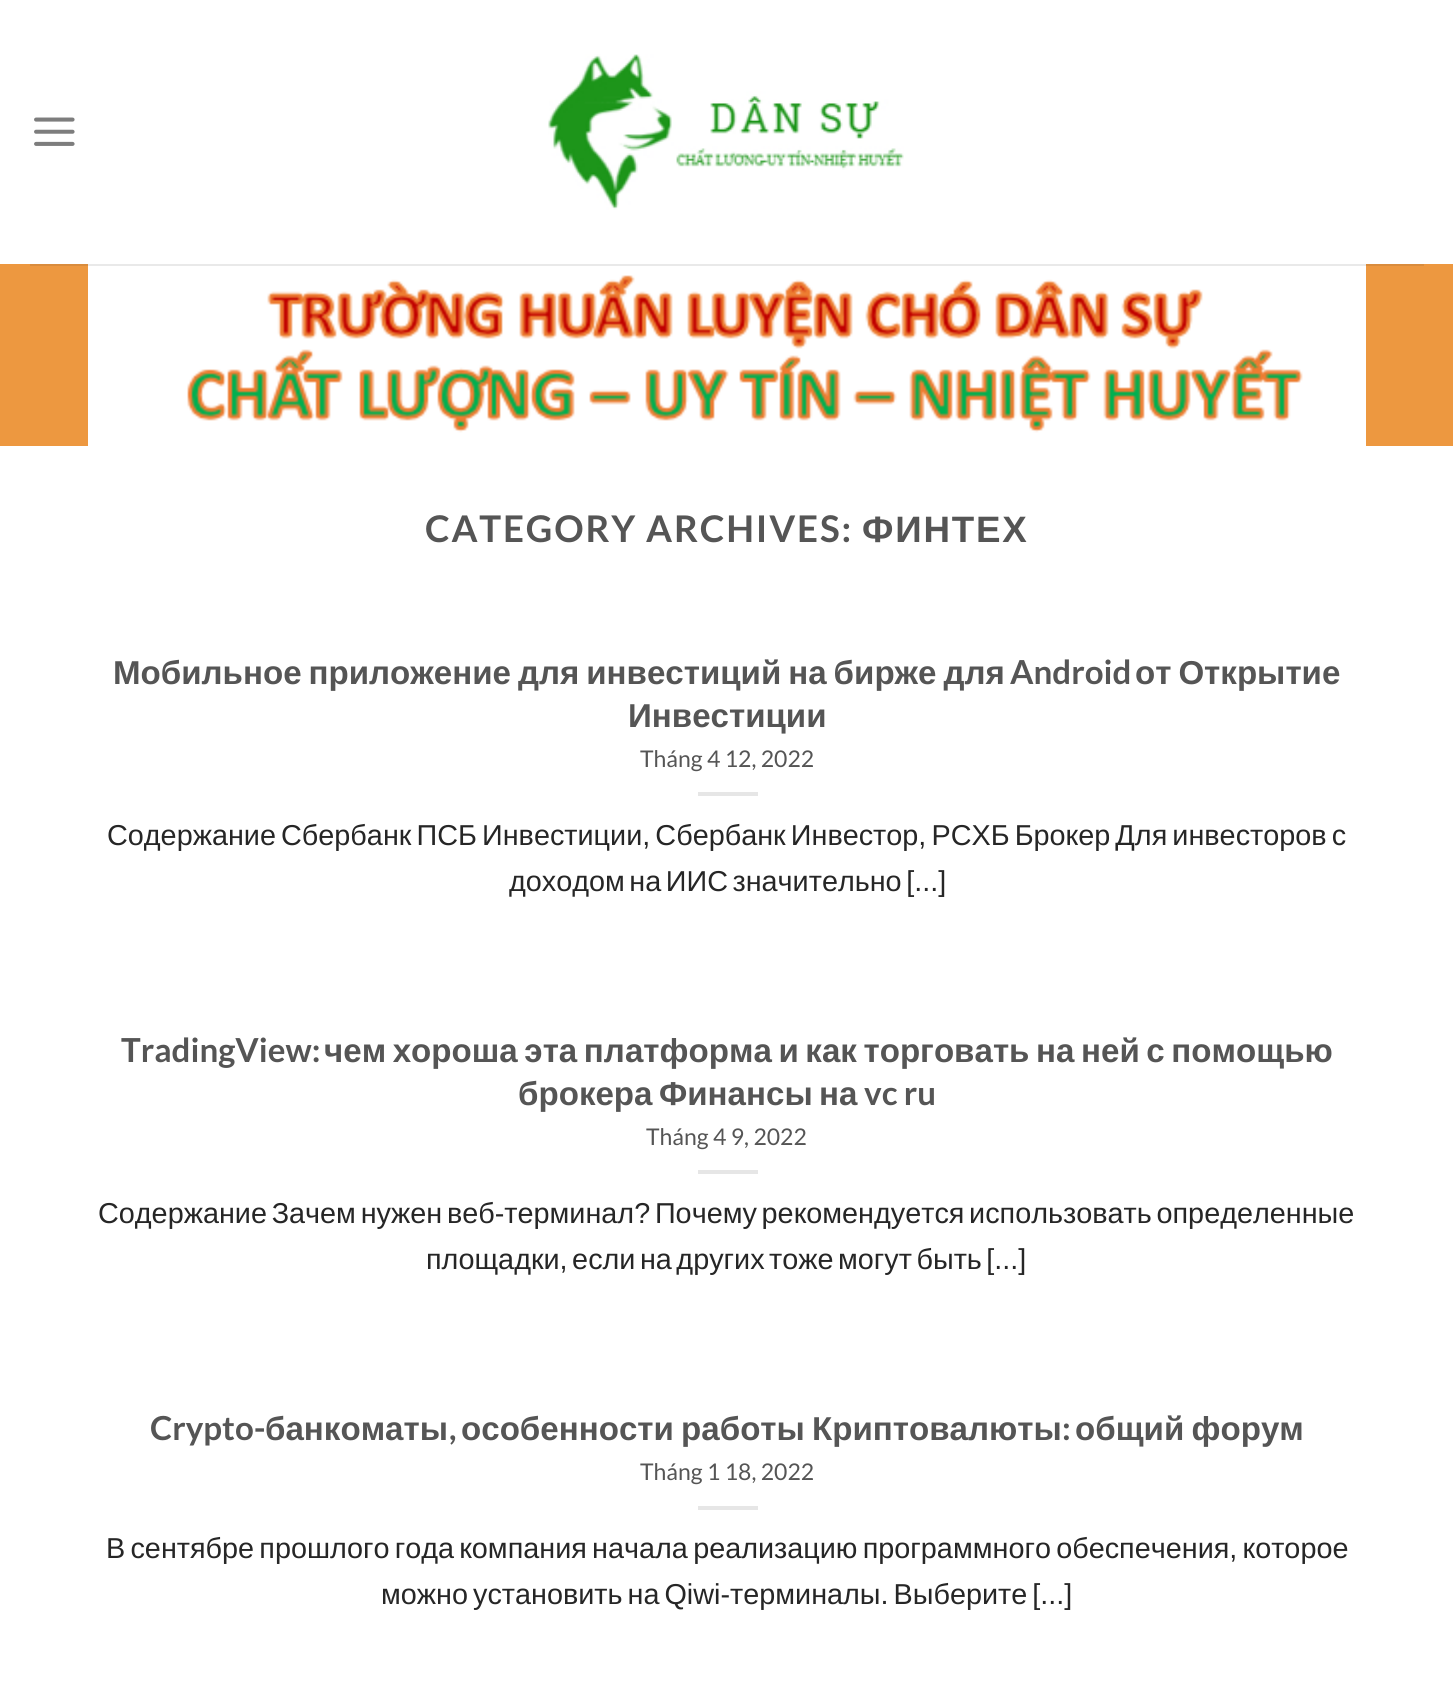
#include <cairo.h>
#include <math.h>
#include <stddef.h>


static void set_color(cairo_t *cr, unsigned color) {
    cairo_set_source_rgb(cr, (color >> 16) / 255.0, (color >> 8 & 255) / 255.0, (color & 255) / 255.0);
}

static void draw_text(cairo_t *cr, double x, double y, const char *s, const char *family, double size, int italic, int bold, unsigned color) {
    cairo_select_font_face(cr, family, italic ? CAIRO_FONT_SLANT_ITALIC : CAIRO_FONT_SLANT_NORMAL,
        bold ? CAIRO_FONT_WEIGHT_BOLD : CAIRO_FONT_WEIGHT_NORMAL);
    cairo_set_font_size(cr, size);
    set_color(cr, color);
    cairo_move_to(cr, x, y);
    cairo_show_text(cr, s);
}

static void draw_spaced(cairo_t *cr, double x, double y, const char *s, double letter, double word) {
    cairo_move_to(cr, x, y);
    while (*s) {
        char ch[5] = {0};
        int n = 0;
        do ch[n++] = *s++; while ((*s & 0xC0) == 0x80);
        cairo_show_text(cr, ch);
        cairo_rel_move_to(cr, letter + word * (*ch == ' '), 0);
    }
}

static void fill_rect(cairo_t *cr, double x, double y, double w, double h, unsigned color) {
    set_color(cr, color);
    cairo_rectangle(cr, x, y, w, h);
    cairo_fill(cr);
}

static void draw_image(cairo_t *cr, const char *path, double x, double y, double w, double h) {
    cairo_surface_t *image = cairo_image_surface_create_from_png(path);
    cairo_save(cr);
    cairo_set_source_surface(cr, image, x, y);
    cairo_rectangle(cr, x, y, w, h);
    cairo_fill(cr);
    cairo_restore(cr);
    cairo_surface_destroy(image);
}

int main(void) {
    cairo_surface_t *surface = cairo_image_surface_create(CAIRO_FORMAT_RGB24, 1453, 1686);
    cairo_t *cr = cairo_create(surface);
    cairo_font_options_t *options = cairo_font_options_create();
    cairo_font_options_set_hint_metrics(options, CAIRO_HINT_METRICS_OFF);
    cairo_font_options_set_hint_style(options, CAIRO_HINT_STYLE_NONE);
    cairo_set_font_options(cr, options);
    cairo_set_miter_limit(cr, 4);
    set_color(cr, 0xFFFFFF);
    cairo_paint(cr);
    draw_image(cr, "assets/img1.png", 34, 117, 41, 29);
    draw_image(cr, "assets/img2.png", 548, 54, 356, 156);
    fill_rect(cr, 0, 264, 1453, 182, 0xED9840);
    draw_image(cr, "assets/img3.png", 88, 264, 1278, 182);
    cairo_set_source_rgba(cr, 0.149, 0.149, 0.149, 0.1);
    cairo_rectangle(cr, 30, 264, 1394, 2);
    cairo_fill(cr);
    cairo_select_font_face(cr, "Lato", CAIRO_FONT_SLANT_NORMAL, CAIRO_FONT_WEIGHT_BOLD);
    cairo_set_font_size(cr, 36.75);
    set_color(cr, 0x555555);
    draw_spaced(cr, 425, 542, "CATEGORY ARCHIVES:", 1.8, 0);
    cairo_select_font_face(cr, "Liberation Sans", CAIRO_FONT_SLANT_NORMAL, CAIRO_FONT_WEIGHT_BOLD);
    draw_spaced(cr, 862, 542, "ФИНТЕХ", 1.8, 0);
    cairo_set_font_size(cr, 33.1);
    draw_spaced(cr, 113, 684, "Мобильное приложение для инвестиций на бирже для", 0, -2.25);
    draw_text(cr, 1010, 684, "Android", "Lato", 33.1, 0, 1, 0x555555);
    cairo_select_font_face(cr, "Liberation Sans", CAIRO_FONT_SLANT_NORMAL, CAIRO_FONT_WEIGHT_BOLD);
    draw_spaced(cr, 1135, 684, "от Открытие", 0, -2.25);
    draw_text(cr, 628, 727, "Инвестиции", "Liberation Sans", 33.1, 0, 1, 0x555555);
    draw_text(cr, 640, 767, "Tháng 4 12, 2022", "Lato", 23, 0, 0, 0x555555);
    fill_rect(cr, 698, 792, 60, 4, 0xE6E6E6);
    cairo_select_font_face(cr, "Liberation Sans", CAIRO_FONT_SLANT_NORMAL, CAIRO_FONT_WEIGHT_NORMAL);
    cairo_set_font_size(cr, 28.8);
    set_color(cr, 0x262626);
    draw_spaced(cr, 107, 845, "Содержание Сбербанк ПСБ Инвестиции, Сбербанк Инвестор, РСХБ Брокер Для инвесторов с", 0, -2.9);
    draw_spaced(cr, 509, 891, "доходом на ИИС значительно [...]", 0, -3.5);
    draw_text(cr, 121, 1062, "TradingView:", "Lato", 33.1, 0, 1, 0x555555);
    cairo_select_font_face(cr, "Liberation Sans", CAIRO_FONT_SLANT_NORMAL, CAIRO_FONT_WEIGHT_BOLD);
    draw_spaced(cr, 324, 1062, "чем хороша эта платформа и как торговать на ней с помощью", 0, -2.6);
    draw_text(cr, 518, 1105, "брокера", "Liberation Sans", 33.1, 0, 1, 0x555555);
    draw_text(cr, 659, 1105, "Финансы", "Liberation Sans", 33.1, 0, 1, 0x555555);
    draw_text(cr, 819, 1105, "на", "Liberation Sans", 33.1, 0, 1, 0x555555);
    draw_text(cr, 864, 1105, "vc ru", "Lato", 33.1, 0, 1, 0x555555);
    draw_text(cr, 646, 1145, "Tháng 4 9, 2022", "Lato", 23, 0, 0, 0x555555);
    fill_rect(cr, 698, 1170, 60, 4, 0xE6E6E6);
    cairo_select_font_face(cr, "Liberation Sans", CAIRO_FONT_SLANT_NORMAL, CAIRO_FONT_WEIGHT_NORMAL);
    cairo_set_font_size(cr, 28.8);
    set_color(cr, 0x262626);
    draw_spaced(cr, 98, 1223, "Содержание Зачем нужен веб-терминал? Почему рекомендуется использовать определенные", 0, -3.25);
    draw_spaced(cr, 426, 1269, "площадки, если на других тоже могут быть [...]", 0, -3.5);
    draw_text(cr, 150, 1440, "Crypto-", "Lato", 33.1, 0, 1, 0x555555);
    draw_text(cr, 265, 1440, "банкоматы", "Liberation Sans", 33.1, 0, 1, 0x555555);
    draw_text(cr, 449, 1440, ",", "Lato", 33.1, 0, 1, 0x555555);
    cairo_select_font_face(cr, "Liberation Sans", CAIRO_FONT_SLANT_NORMAL, CAIRO_FONT_WEIGHT_BOLD);
    draw_spaced(cr, 461, 1440, "особенности работы Криптовалюты", 0, -2);
    draw_text(cr, 1062, 1440, ":", "Lato", 33.1, 0, 1, 0x555555);
    cairo_select_font_face(cr, "Liberation Sans", CAIRO_FONT_SLANT_NORMAL, CAIRO_FONT_WEIGHT_BOLD);
    draw_spaced(cr, 1075, 1440, "общий форум", 0, -2);
    draw_text(cr, 640, 1480, "Tháng 1 18, 2022", "Lato", 23, 0, 0, 0x555555);
    fill_rect(cr, 698, 1506, 60, 4, 0xE6E6E6);
    cairo_select_font_face(cr, "Liberation Sans", CAIRO_FONT_SLANT_NORMAL, CAIRO_FONT_WEIGHT_NORMAL);
    cairo_set_font_size(cr, 28.8);
    set_color(cr, 0x262626);
    draw_spaced(cr, 106, 1558, "В сентябре прошлого года компания начала реализацию программного обеспечения, которое", 0, -2.75);
    draw_spaced(cr, 381, 1604, "можно установить на Qiwi-терминалы. Выберите [...]", 0, -3);
    cairo_surface_write_to_png(surface, "output.png");
    cairo_font_options_destroy(options);
    cairo_destroy(cr);
    cairo_surface_destroy(surface);
    return 0;
}
